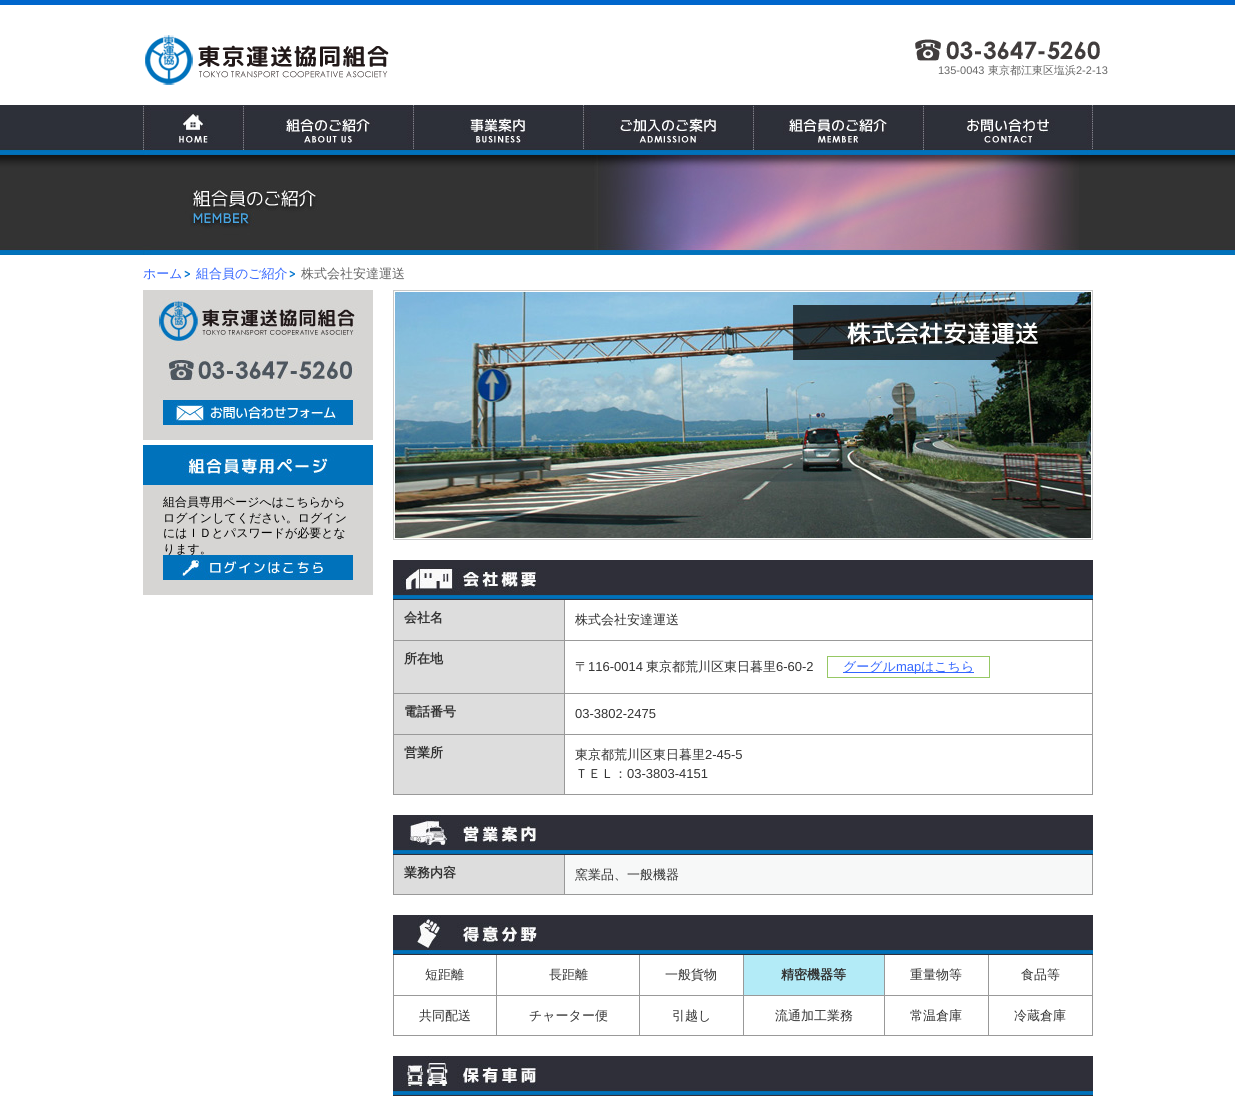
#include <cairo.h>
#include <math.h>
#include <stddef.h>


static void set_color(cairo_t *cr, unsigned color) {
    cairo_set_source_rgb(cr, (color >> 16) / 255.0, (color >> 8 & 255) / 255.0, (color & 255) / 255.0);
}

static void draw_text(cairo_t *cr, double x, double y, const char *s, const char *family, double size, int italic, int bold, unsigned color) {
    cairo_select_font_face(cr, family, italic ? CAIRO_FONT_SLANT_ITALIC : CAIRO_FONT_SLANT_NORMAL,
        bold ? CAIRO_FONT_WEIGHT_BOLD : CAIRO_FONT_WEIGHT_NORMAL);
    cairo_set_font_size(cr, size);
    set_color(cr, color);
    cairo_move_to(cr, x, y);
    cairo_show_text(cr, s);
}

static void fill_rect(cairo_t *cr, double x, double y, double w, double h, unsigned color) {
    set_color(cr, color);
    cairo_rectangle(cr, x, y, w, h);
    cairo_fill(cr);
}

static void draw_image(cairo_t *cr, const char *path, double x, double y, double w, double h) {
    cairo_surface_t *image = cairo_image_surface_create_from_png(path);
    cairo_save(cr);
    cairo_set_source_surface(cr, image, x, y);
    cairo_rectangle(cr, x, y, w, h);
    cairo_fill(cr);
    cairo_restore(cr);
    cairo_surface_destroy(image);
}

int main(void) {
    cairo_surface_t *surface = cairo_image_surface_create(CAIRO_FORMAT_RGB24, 1235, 1096);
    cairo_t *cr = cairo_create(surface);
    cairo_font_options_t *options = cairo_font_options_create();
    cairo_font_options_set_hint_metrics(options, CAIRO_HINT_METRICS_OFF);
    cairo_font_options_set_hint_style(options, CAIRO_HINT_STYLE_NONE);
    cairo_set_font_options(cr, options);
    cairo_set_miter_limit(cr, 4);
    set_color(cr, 0xFFFFFF);
    cairo_paint(cr);
    fill_rect(cr, 0, 0, 1235, 5, 0x0066CC);
    draw_image(cr, "assets/img1.png", 145, 35, 244, 50);
    draw_image(cr, "assets/img2.png", 915, 39, 185, 22);
    draw_text(cr, 938, 74, "135-0043", "Liberation Sans", 11, 0, 0, 0x666666);
    draw_text(cr, 988, 74, "東京都江東区塩浜", "WenQuanYi Zen Hei Medium", 11, 0, 0, 0x666666);
    draw_text(cr, 1076, 74, "2-2-13", "Liberation Sans", 11, 0, 0, 0x666666);
    draw_image(cr, "assets/img3.png", 0, 105, 1235, 50);
    draw_image(cr, "assets/img4.png", 143, 106, 100, 49);
    draw_image(cr, "assets/img5.png", 243, 106, 170, 44);
    draw_image(cr, "assets/img6.png", 413, 105, 170, 45);
    draw_image(cr, "assets/img7.png", 583, 105, 170, 45);
    draw_image(cr, "assets/img8.png", 753, 105, 170, 45);
    draw_image(cr, "assets/img9.png", 923, 105, 170, 50);
    draw_image(cr, "assets/img10.png", 0, 155, 1235, 100);
    draw_image(cr, "assets/img11.png", 143, 155, 936, 100);
    draw_text(cr, 143, 278, "ホーム", "WenQuanYi Zen Hei Medium", 13, 0, 0, 0x3366FF);
    draw_image(cr, "assets/img12.png", 184, 270, 6, 8);
    draw_text(cr, 196, 278, "組合員のご紹介", "WenQuanYi Zen Hei Medium", 13, 0, 0, 0x3366FF);
    draw_image(cr, "assets/img12.png", 289, 270, 6, 8);
    draw_text(cr, 301, 278, "株式会社安達運送", "WenQuanYi Zen Hei Medium", 13, 0, 0, 0x666666);
    draw_image(cr, "assets/img13.png", 143, 290, 230, 150);
    draw_image(cr, "assets/img14.png", 163, 400, 190, 25);
    draw_image(cr, "assets/img15.png", 143, 445, 230, 150);
    draw_text(cr, 163, 506, "組合員専用ページへはこちらから", "WenQuanYi Zen Hei Medium", 12, 0, 0, 0x000000);
    draw_text(cr, 163, 522, "ログインしてください。ログイン", "WenQuanYi Zen Hei Medium", 12, 0, 0, 0x000000);
    draw_text(cr, 163, 537, "にはＩＤとパスワードが必要とな", "WenQuanYi Zen Hei Medium", 12, 0, 0, 0x000000);
    draw_text(cr, 163, 553, "ります。", "WenQuanYi Zen Hei Medium", 12, 0, 0, 0x000000);
    draw_image(cr, "assets/img16.png", 163, 555, 190, 25);
    draw_image(cr, "assets/img17.png", 393, 290, 700, 250);
    draw_image(cr, "assets/img18.png", 393, 560, 700, 40);
    fill_rect(cr, 394, 600, 170, 40, 0xDDDDDD);
    fill_rect(cr, 1092, 600, 1, 195, 0x999999);
    fill_rect(cr, 564, 794, 529, 1, 0x999999);
    fill_rect(cr, 564, 734, 1, 61, 0x999999);
    fill_rect(cr, 564, 734, 529, 1, 0x999999);
    fill_rect(cr, 564, 693, 1, 42, 0x999999);
    fill_rect(cr, 564, 693, 529, 1, 0x999999);
    fill_rect(cr, 564, 640, 1, 54, 0x999999);
    fill_rect(cr, 564, 640, 529, 1, 0x999999);
    fill_rect(cr, 564, 600, 1, 41, 0x999999);
    fill_rect(cr, 393, 794, 172, 1, 0x999999);
    fill_rect(cr, 393, 734, 1, 61, 0x999999);
    fill_rect(cr, 393, 734, 172, 1, 0x999999);
    fill_rect(cr, 393, 693, 1, 42, 0x999999);
    fill_rect(cr, 393, 693, 172, 1, 0x999999);
    fill_rect(cr, 393, 640, 1, 54, 0x999999);
    fill_rect(cr, 393, 640, 172, 1, 0x999999);
    fill_rect(cr, 393, 600, 1, 41, 0x999999);
    draw_text(cr, 404, 622, "会社名", "WenQuanYi Zen Hei", 13, 0, 1, 0x333333);
    draw_text(cr, 575, 624, "株式会社安達運送", "WenQuanYi Zen Hei Medium", 13, 0, 0, 0x333333);
    fill_rect(cr, 394, 641, 170, 52, 0xDDDDDD);
    draw_text(cr, 404, 663, "所在地", "WenQuanYi Zen Hei", 13, 0, 1, 0x333333);
    draw_text(cr, 575, 671, "〒", "WenQuanYi Zen Hei Medium", 13, 0, 0, 0x333333);
    draw_text(cr, 588, 671, "116-0014", "Liberation Sans", 13, 0, 0, 0x333333);
    draw_text(cr, 646, 671, "東京都荒川区東日暮里", "WenQuanYi Zen Hei Medium", 13, 0, 0, 0x333333);
    draw_text(cr, 776, 671, "6-60-2", "Liberation Sans", 13, 0, 0, 0x333333);
    cairo_rectangle(cr, 827.5, 656.5, 162, 21);
    set_color(cr, 0x96C864);
    cairo_set_line_width(cr, 1);
    cairo_stroke(cr);
    fill_rect(cr, 843, 672, 131, 1, 0x3366FF);
    draw_text(cr, 843, 671, "グーグル", "WenQuanYi Zen Hei Medium", 13, 0, 0, 0x3366FF);
    draw_text(cr, 896, 671, "map", "Liberation Sans", 13, 0, 0, 0x3366FF);
    draw_text(cr, 921, 671, "はこちら", "WenQuanYi Zen Hei Medium", 13, 0, 0, 0x3366FF);
    fill_rect(cr, 394, 694, 170, 40, 0xDDDDDD);
    draw_text(cr, 404, 716, "電話番号", "WenQuanYi Zen Hei", 13, 0, 1, 0x333333);
    draw_text(cr, 575, 718, "03-3802-2475", "Liberation Sans", 13, 0, 0, 0x333333);
    fill_rect(cr, 394, 735, 170, 59, 0xDDDDDD);
    draw_text(cr, 404, 757, "営業所", "WenQuanYi Zen Hei", 13, 0, 1, 0x333333);
    draw_text(cr, 575, 759, "東京都荒川区東日暮里", "WenQuanYi Zen Hei Medium", 13, 0, 0, 0x333333);
    draw_text(cr, 705, 759, "2-45-5", "Liberation Sans", 13, 0, 0, 0x333333);
    draw_text(cr, 575, 778, "ＴＥＬ：", "WenQuanYi Zen Hei Medium", 13, 0, 0, 0x333333);
    draw_text(cr, 627, 778, "03-3803-4151", "Liberation Sans", 13, 0, 0, 0x333333);
    fill_rect(cr, 1092, 854, 1, 41, 0x999999);
    fill_rect(cr, 564, 894, 529, 1, 0x999999);
    fill_rect(cr, 564, 854, 1, 41, 0x999999);
    fill_rect(cr, 393, 894, 172, 1, 0x999999);
    fill_rect(cr, 393, 854, 1, 41, 0x999999);
    draw_image(cr, "assets/img19.png", 393, 815, 700, 40);
    fill_rect(cr, 394, 855, 170, 39, 0xDDDDDD);
    draw_text(cr, 404, 877, "業務内容", "WenQuanYi Zen Hei", 13, 0, 1, 0x333333);
    fill_rect(cr, 565, 855, 527, 39, 0xF7F8F8);
    draw_text(cr, 575, 879, "窯業品、一般機器", "WenQuanYi Zen Hei Medium", 13, 0, 0, 0x333333);
    draw_image(cr, "assets/img20.png", 393, 915, 700, 40);
    fill_rect(cr, 1092, 955, 1, 81, 0x999999);
    fill_rect(cr, 988, 1035, 105, 1, 0x999999);
    fill_rect(cr, 988, 995, 1, 41, 0x999999);
    fill_rect(cr, 988, 995, 105, 1, 0x999999);
    fill_rect(cr, 988, 955, 1, 41, 0x999999);
    fill_rect(cr, 884, 1035, 105, 1, 0x999999);
    fill_rect(cr, 884, 995, 1, 41, 0x999999);
    fill_rect(cr, 884, 995, 105, 1, 0x999999);
    fill_rect(cr, 884, 955, 1, 41, 0x999999);
    fill_rect(cr, 743, 1035, 142, 1, 0x999999);
    fill_rect(cr, 743, 995, 1, 41, 0x999999);
    fill_rect(cr, 743, 995, 142, 1, 0x999999);
    fill_rect(cr, 743, 955, 1, 41, 0x999999);
    fill_rect(cr, 639, 1035, 105, 1, 0x999999);
    fill_rect(cr, 639, 995, 1, 41, 0x999999);
    fill_rect(cr, 639, 995, 105, 1, 0x999999);
    fill_rect(cr, 639, 955, 1, 41, 0x999999);
    fill_rect(cr, 496, 1035, 144, 1, 0x999999);
    fill_rect(cr, 496, 995, 1, 41, 0x999999);
    fill_rect(cr, 496, 995, 144, 1, 0x999999);
    fill_rect(cr, 496, 955, 1, 41, 0x999999);
    fill_rect(cr, 393, 1035, 104, 1, 0x999999);
    fill_rect(cr, 393, 995, 1, 41, 0x999999);
    fill_rect(cr, 393, 995, 104, 1, 0x999999);
    fill_rect(cr, 393, 955, 1, 41, 0x999999);
    draw_text(cr, 425, 979, "短距離", "WenQuanYi Zen Hei Medium", 13, 0, 0, 0x333333);
    draw_text(cr, 549, 979, "長距離", "WenQuanYi Zen Hei Medium", 13, 0, 0, 0x333333);
    draw_text(cr, 665, 979, "一般貨物", "WenQuanYi Zen Hei Medium", 13, 0, 0, 0x333333);
    fill_rect(cr, 744, 955, 140, 40, 0xB3EBF7);
    draw_text(cr, 781, 979, "精密機器等", "WenQuanYi Zen Hei", 13, 0, 1, 0x333333);
    draw_text(cr, 910, 979, "重量物等", "WenQuanYi Zen Hei Medium", 13, 0, 0, 0x333333);
    draw_text(cr, 1021, 979, "食品等", "WenQuanYi Zen Hei Medium", 13, 0, 0, 0x333333);
    draw_text(cr, 419, 1020, "共同配送", "WenQuanYi Zen Hei Medium", 13, 0, 0, 0x333333);
    draw_text(cr, 529, 1020, "チャーター便", "WenQuanYi Zen Hei Medium", 13, 0, 0, 0x333333);
    draw_text(cr, 672, 1020, "引越し", "WenQuanYi Zen Hei Medium", 13, 0, 0, 0x333333);
    draw_text(cr, 775, 1020, "流通加工業務", "WenQuanYi Zen Hei Medium", 13, 0, 0, 0x333333);
    draw_text(cr, 910, 1020, "常温倉庫", "WenQuanYi Zen Hei Medium", 13, 0, 0, 0x333333);
    draw_text(cr, 1014, 1020, "冷蔵倉庫", "WenQuanYi Zen Hei Medium", 13, 0, 0, 0x333333);
    draw_image(cr, "assets/img21.png", 393, 1056, 700, 40);
    cairo_surface_write_to_png(surface, "output.png");
    cairo_font_options_destroy(options);
    cairo_destroy(cr);
    cairo_surface_destroy(surface);
    return 0;
}
